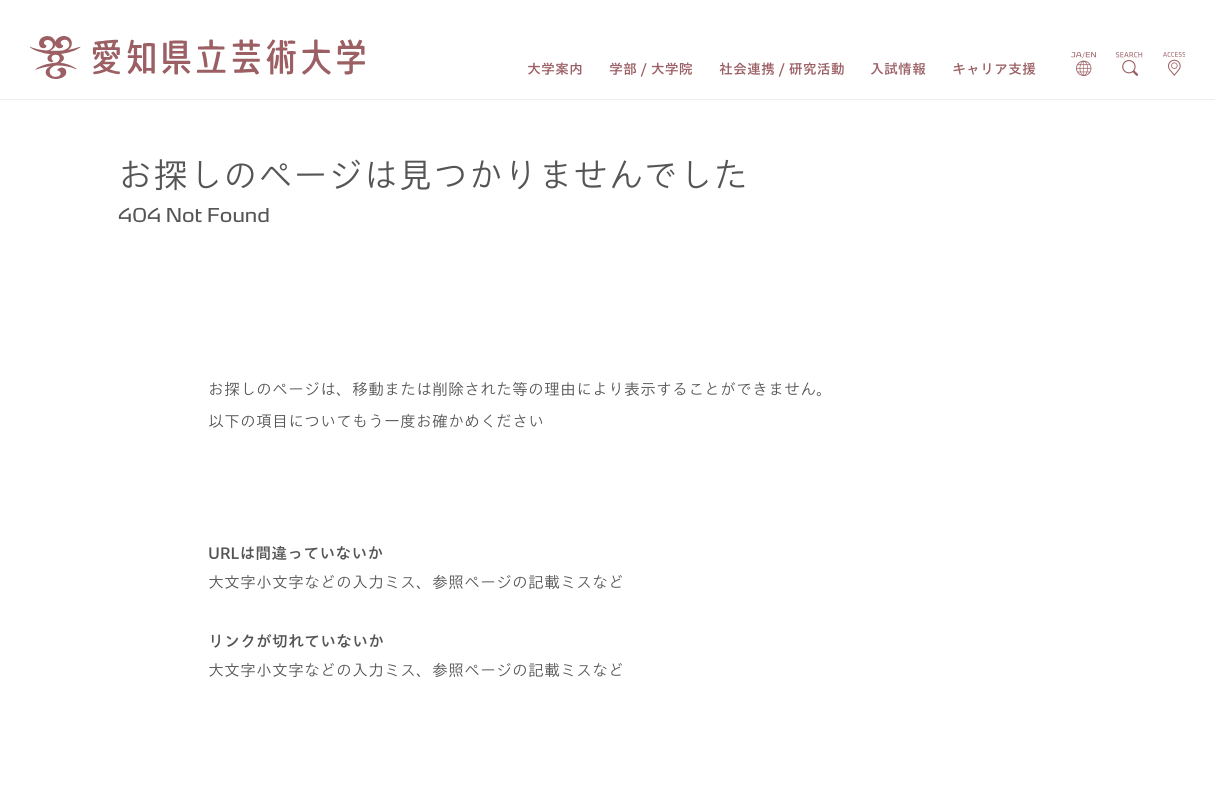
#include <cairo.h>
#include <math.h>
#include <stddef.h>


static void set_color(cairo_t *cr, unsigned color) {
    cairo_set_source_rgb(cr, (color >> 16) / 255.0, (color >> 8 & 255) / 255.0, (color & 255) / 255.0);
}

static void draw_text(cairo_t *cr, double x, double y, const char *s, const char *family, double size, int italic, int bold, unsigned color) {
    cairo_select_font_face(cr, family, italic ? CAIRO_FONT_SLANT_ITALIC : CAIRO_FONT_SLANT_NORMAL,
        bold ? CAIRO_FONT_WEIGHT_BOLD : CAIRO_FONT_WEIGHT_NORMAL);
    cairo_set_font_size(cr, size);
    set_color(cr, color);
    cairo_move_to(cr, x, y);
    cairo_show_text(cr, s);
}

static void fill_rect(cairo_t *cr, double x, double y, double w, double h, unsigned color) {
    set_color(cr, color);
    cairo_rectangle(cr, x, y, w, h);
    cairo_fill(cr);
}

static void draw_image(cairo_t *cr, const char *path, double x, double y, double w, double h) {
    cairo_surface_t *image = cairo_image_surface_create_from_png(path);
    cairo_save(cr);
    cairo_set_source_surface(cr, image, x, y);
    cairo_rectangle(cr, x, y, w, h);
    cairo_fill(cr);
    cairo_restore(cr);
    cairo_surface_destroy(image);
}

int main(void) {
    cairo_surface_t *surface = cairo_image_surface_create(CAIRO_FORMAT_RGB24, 1215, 793);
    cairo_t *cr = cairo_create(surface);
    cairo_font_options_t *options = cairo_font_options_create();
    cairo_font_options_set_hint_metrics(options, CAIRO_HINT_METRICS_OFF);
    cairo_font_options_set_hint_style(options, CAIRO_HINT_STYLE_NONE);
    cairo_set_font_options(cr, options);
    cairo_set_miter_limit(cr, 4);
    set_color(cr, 0xFFFFFF);
    cairo_paint(cr);
    fill_rect(cr, 0, 99, 1215, 1, 0xEEEEEE);
    draw_image(cr, "assets/img1.png", 30, 36, 335, 43);
    draw_text(cr, 527, 74, "大学案内", "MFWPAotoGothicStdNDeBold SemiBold", 14, 0, 0, 0x9B5F64);
    draw_text(cr, 609, 74, "学部 / 大学院", "MFWPAotoGothicStdNDeBold SemiBold", 14, 0, 0, 0x9B5F64);
    draw_text(cr, 719, 74, "社会連携 / 研究活動", "MFWPAotoGothicStdNDeBold SemiBold", 14, 0, 0, 0x9B5F64);
    draw_text(cr, 870, 74, "入試情報", "MFWPAotoGothicStdNDeBold SemiBold", 14, 0, 0, 0x9B5F64);
    draw_text(cr, 952, 74, "キャリア支援", "MFWPAotoGothicStdNDeBold SemiBold", 14, 0, 0, 0x9B5F64);
    draw_image(cr, "assets/img2.png", 1071, 52, 25, 24);
    draw_image(cr, "assets/img3.png", 1116, 52, 27, 24);
    draw_image(cr, "assets/img4.png", 1163, 52, 22, 24);
    draw_text(cr, 118, 188, "お探しのページは見つかりませんでした", "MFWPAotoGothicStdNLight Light", 35, 0, 0, 0x555555);
    draw_text(cr, 118, 222, "404 Not Found", "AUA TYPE", 20, 0, 0, 0x555555);
    draw_text(cr, 208, 395, "お探しのページは、移動または削除された等の理由により表示することができません。", "MFWPAotoGothicStdNLight Light", 16, 0, 0, 0x555555);
    draw_text(cr, 208, 427, "以下の項目についてもう一度お確かめください", "MFWPAotoGothicStdNLight Light", 16, 0, 0, 0x555555);
    draw_text(cr, 208, 559, "URLは間違っていないか", "MFWPAotoGothicStdNDeBold SemiBold", 16, 0, 0, 0x555555);
    draw_text(cr, 208, 588, "大文字小文字などの入力ミス、参照ページの記載ミスなど", "MFWPAotoGothicStdNLight Light", 16, 0, 0, 0x555555);
    draw_text(cr, 208, 647, "リンクが切れていないか", "MFWPAotoGothicStdNDeBold SemiBold", 16, 0, 0, 0x555555);
    draw_text(cr, 208, 676, "大文字小文字などの入力ミス、参照ページの記載ミスなど", "MFWPAotoGothicStdNLight Light", 16, 0, 0, 0x555555);
    cairo_surface_write_to_png(surface, "output.png");
    cairo_font_options_destroy(options);
    cairo_destroy(cr);
    cairo_surface_destroy(surface);
    return 0;
}
